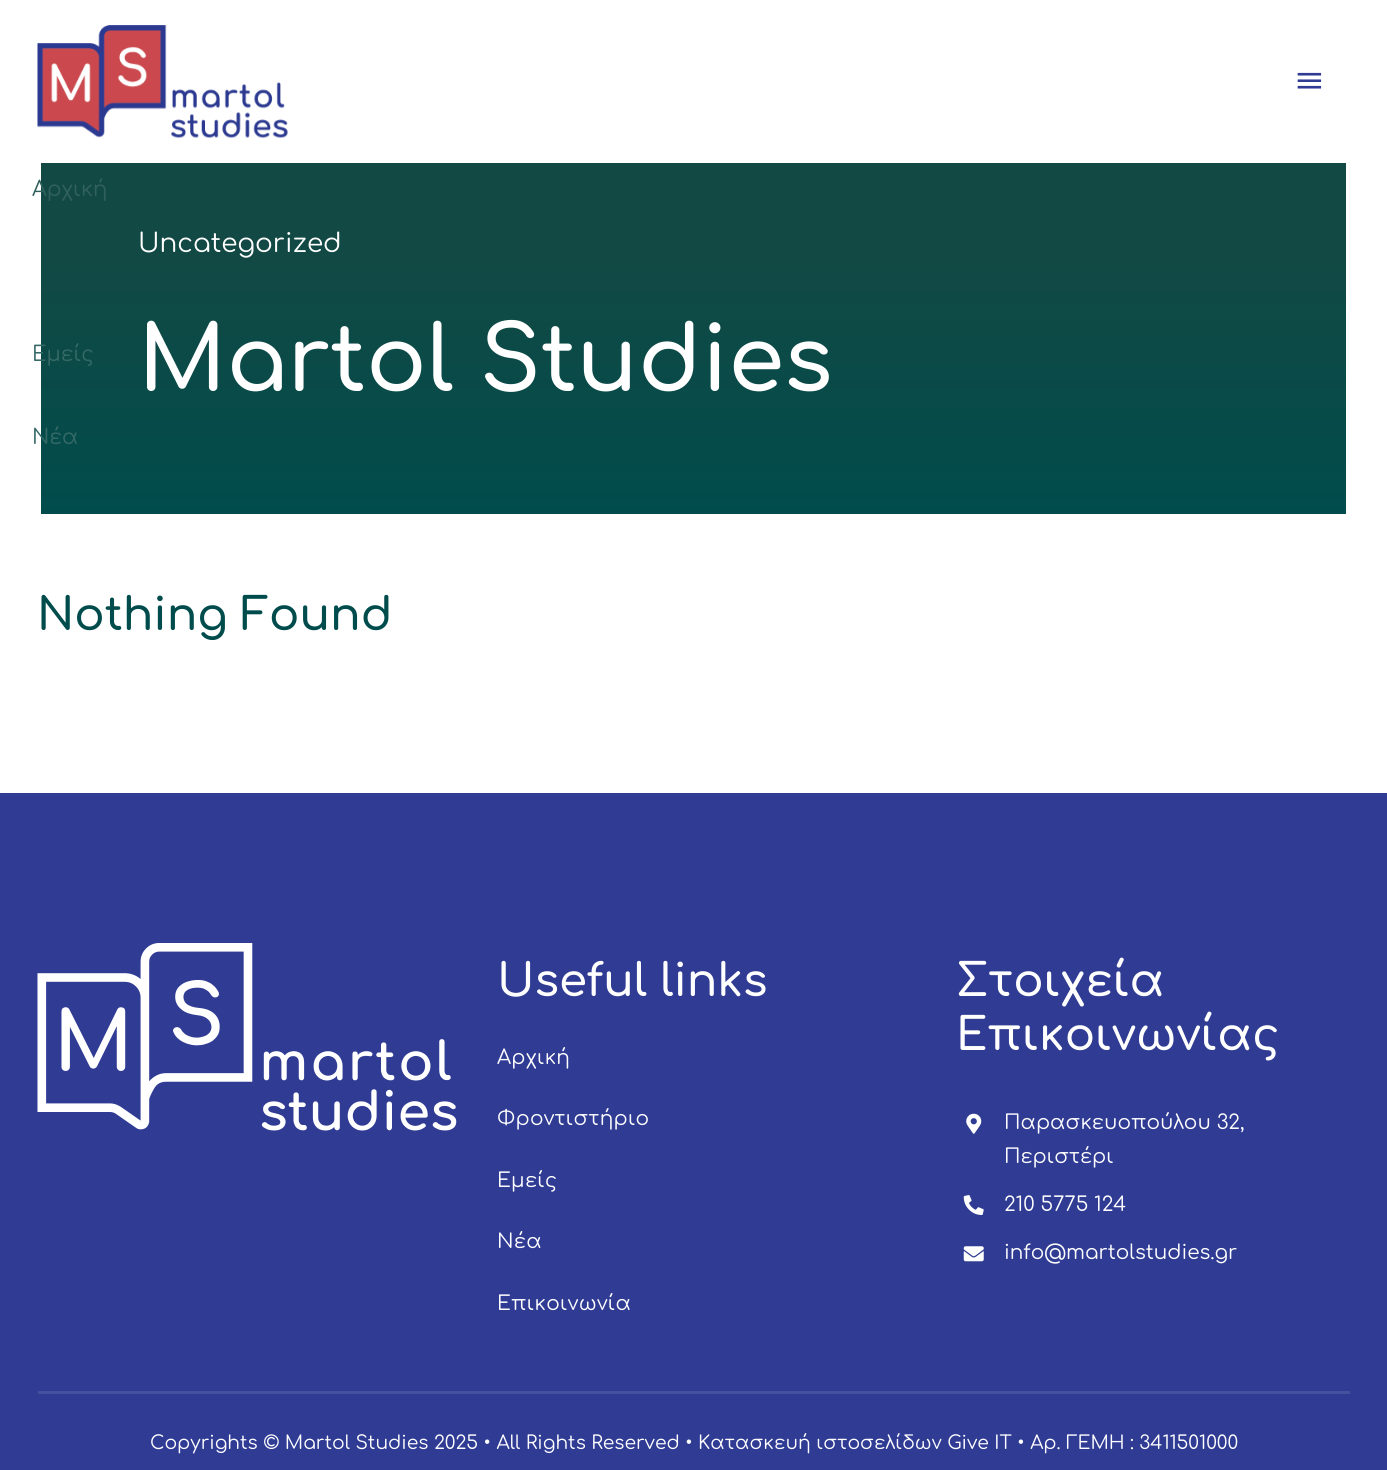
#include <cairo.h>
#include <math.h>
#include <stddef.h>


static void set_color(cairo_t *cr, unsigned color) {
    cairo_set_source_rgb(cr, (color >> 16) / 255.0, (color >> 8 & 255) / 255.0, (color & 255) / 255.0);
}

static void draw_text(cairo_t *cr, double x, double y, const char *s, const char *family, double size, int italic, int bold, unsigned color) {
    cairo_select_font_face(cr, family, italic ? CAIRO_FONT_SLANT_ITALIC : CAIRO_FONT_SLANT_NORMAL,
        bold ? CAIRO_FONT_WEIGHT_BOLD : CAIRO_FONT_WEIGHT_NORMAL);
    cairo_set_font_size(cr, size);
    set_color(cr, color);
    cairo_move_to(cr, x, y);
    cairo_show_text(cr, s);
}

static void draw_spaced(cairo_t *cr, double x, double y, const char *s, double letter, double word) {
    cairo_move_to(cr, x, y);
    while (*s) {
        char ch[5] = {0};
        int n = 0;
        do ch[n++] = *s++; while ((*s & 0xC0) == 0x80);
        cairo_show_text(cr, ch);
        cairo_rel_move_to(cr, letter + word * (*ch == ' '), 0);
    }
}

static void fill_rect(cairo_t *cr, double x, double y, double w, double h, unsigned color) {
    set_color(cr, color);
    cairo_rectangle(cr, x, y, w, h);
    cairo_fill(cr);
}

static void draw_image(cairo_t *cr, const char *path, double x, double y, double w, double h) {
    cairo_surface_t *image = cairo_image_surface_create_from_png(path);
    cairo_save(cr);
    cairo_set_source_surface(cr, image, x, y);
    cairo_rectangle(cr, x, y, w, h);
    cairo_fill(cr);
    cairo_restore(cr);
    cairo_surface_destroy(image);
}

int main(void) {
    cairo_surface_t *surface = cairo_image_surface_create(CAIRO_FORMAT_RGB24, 1387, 1470);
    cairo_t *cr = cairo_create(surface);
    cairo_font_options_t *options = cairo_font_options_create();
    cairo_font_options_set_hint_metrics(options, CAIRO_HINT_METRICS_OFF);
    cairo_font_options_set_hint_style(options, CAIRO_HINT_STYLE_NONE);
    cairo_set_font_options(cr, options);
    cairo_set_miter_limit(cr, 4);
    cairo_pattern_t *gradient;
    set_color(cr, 0xFFFFFF);
    cairo_paint(cr);
    draw_image(cr, "assets/img1.png", 37, 25, 251, 113);
    draw_image(cr, "assets/img2.png", 1297, 72, 25, 17);
    gradient = cairo_pattern_create_linear(694, 25, 694, 514);
    cairo_pattern_add_color_stop_rgba(gradient, 0.47, 0.071, 0.286, 0.267, 1);
    cairo_pattern_add_color_stop_rgba(gradient, 1, 0, 0.298, 0.298, 1);
    cairo_set_source(cr, gradient);
    cairo_pattern_destroy(gradient);
    cairo_rectangle(cr, 41, 163, 1305, 351);
    cairo_fill(cr);
    draw_text(cr, 32, 196, "Αρχική", "Comfortaa", 21, 0, 0, 0x31615D);
    draw_text(cr, 32, 361, "Εμείς", "Comfortaa", 21, 0, 0, 0x346966);
    draw_text(cr, 32, 444, "Νέα", "Comfortaa", 21, 0, 0, 0x346966);
    draw_text(cr, 138, 252, "Uncategorized", "Comfortaa", 26.25, 0, 0, 0xFFFFFF);
    draw_text(cr, 138, 391, "Martol Studies", "Comfortaa SemiBold", 90, 0, 0, 0xFFFFFF);
    draw_text(cr, 37, 630, "Nothing Found", "Comfortaa SemiBold", 45, 0, 0, 0x004C4C);
    fill_rect(cr, 0, 793, 1387, 677, 0x303C94);
    draw_image(cr, "assets/img3.png", 37, 943, 420, 188);
    draw_text(cr, 497, 996, "Useful links", "Comfortaa SemiBold", 45, 0, 0, 0xFFFFFF);
    cairo_select_font_face(cr, "Comfortaa", CAIRO_FONT_SLANT_NORMAL, CAIRO_FONT_WEIGHT_NORMAL);
    cairo_set_font_size(cr, 20);
    draw_spaced(cr, 497, 1064, "Αρχική", 0.25, 0);
    draw_spaced(cr, 497, 1125, "Φροντιστήριο", 0.25, 0);
    draw_spaced(cr, 497, 1187, "Εμείς", 0.25, 0);
    draw_spaced(cr, 497, 1248, "Νέα", 0.25, 0);
    draw_spaced(cr, 497, 1310, "Επικοινωνία", 0.25, 0);
    draw_text(cr, 956, 996, "Στοιχεία", "Comfortaa SemiBold", 45, 0, 0, 0xFFFFFF);
    draw_text(cr, 956, 1050, "Επικοινωνίας", "Comfortaa SemiBold", 45, 0, 0, 0xFFFFFF);
    draw_image(cr, "assets/img4.png", 966, 1113, 16, 21);
    draw_text(cr, 1004, 1129, "Παρασκευοπούλου 32,", "Comfortaa", 20, 0, 0, 0xFFFFFF);
    draw_text(cr, 1004, 1163, "Περιστέρι", "Comfortaa", 20, 0, 0, 0xFFFFFF);
    draw_image(cr, "assets/img5.png", 963, 1195, 21, 20);
    draw_text(cr, 1004, 1211, "210 5775 124", "Comfortaa", 20, 0, 0, 0xFFFFFF);
    draw_image(cr, "assets/img6.png", 963, 1246, 21, 16);
    draw_text(cr, 1004, 1259, "info@martolstudies.gr", "Comfortaa", 20, 0, 0, 0xFFFFFF);
    fill_rect(cr, 38, 1391, 1312, 3, 0x45509F);
    draw_text(cr, 150, 1449, "Copyrights © Martol Studies 2025 • All Rights Reserved • Κατασκευή ιστοσελίδων Give IT • Αρ. ΓΕΜΗ : 3411501000", "Comfortaa", 18.75, 0, 0, 0xFFFFFF);
    cairo_surface_write_to_png(surface, "output.png");
    cairo_font_options_destroy(options);
    cairo_destroy(cr);
    cairo_surface_destroy(surface);
    return 0;
}
